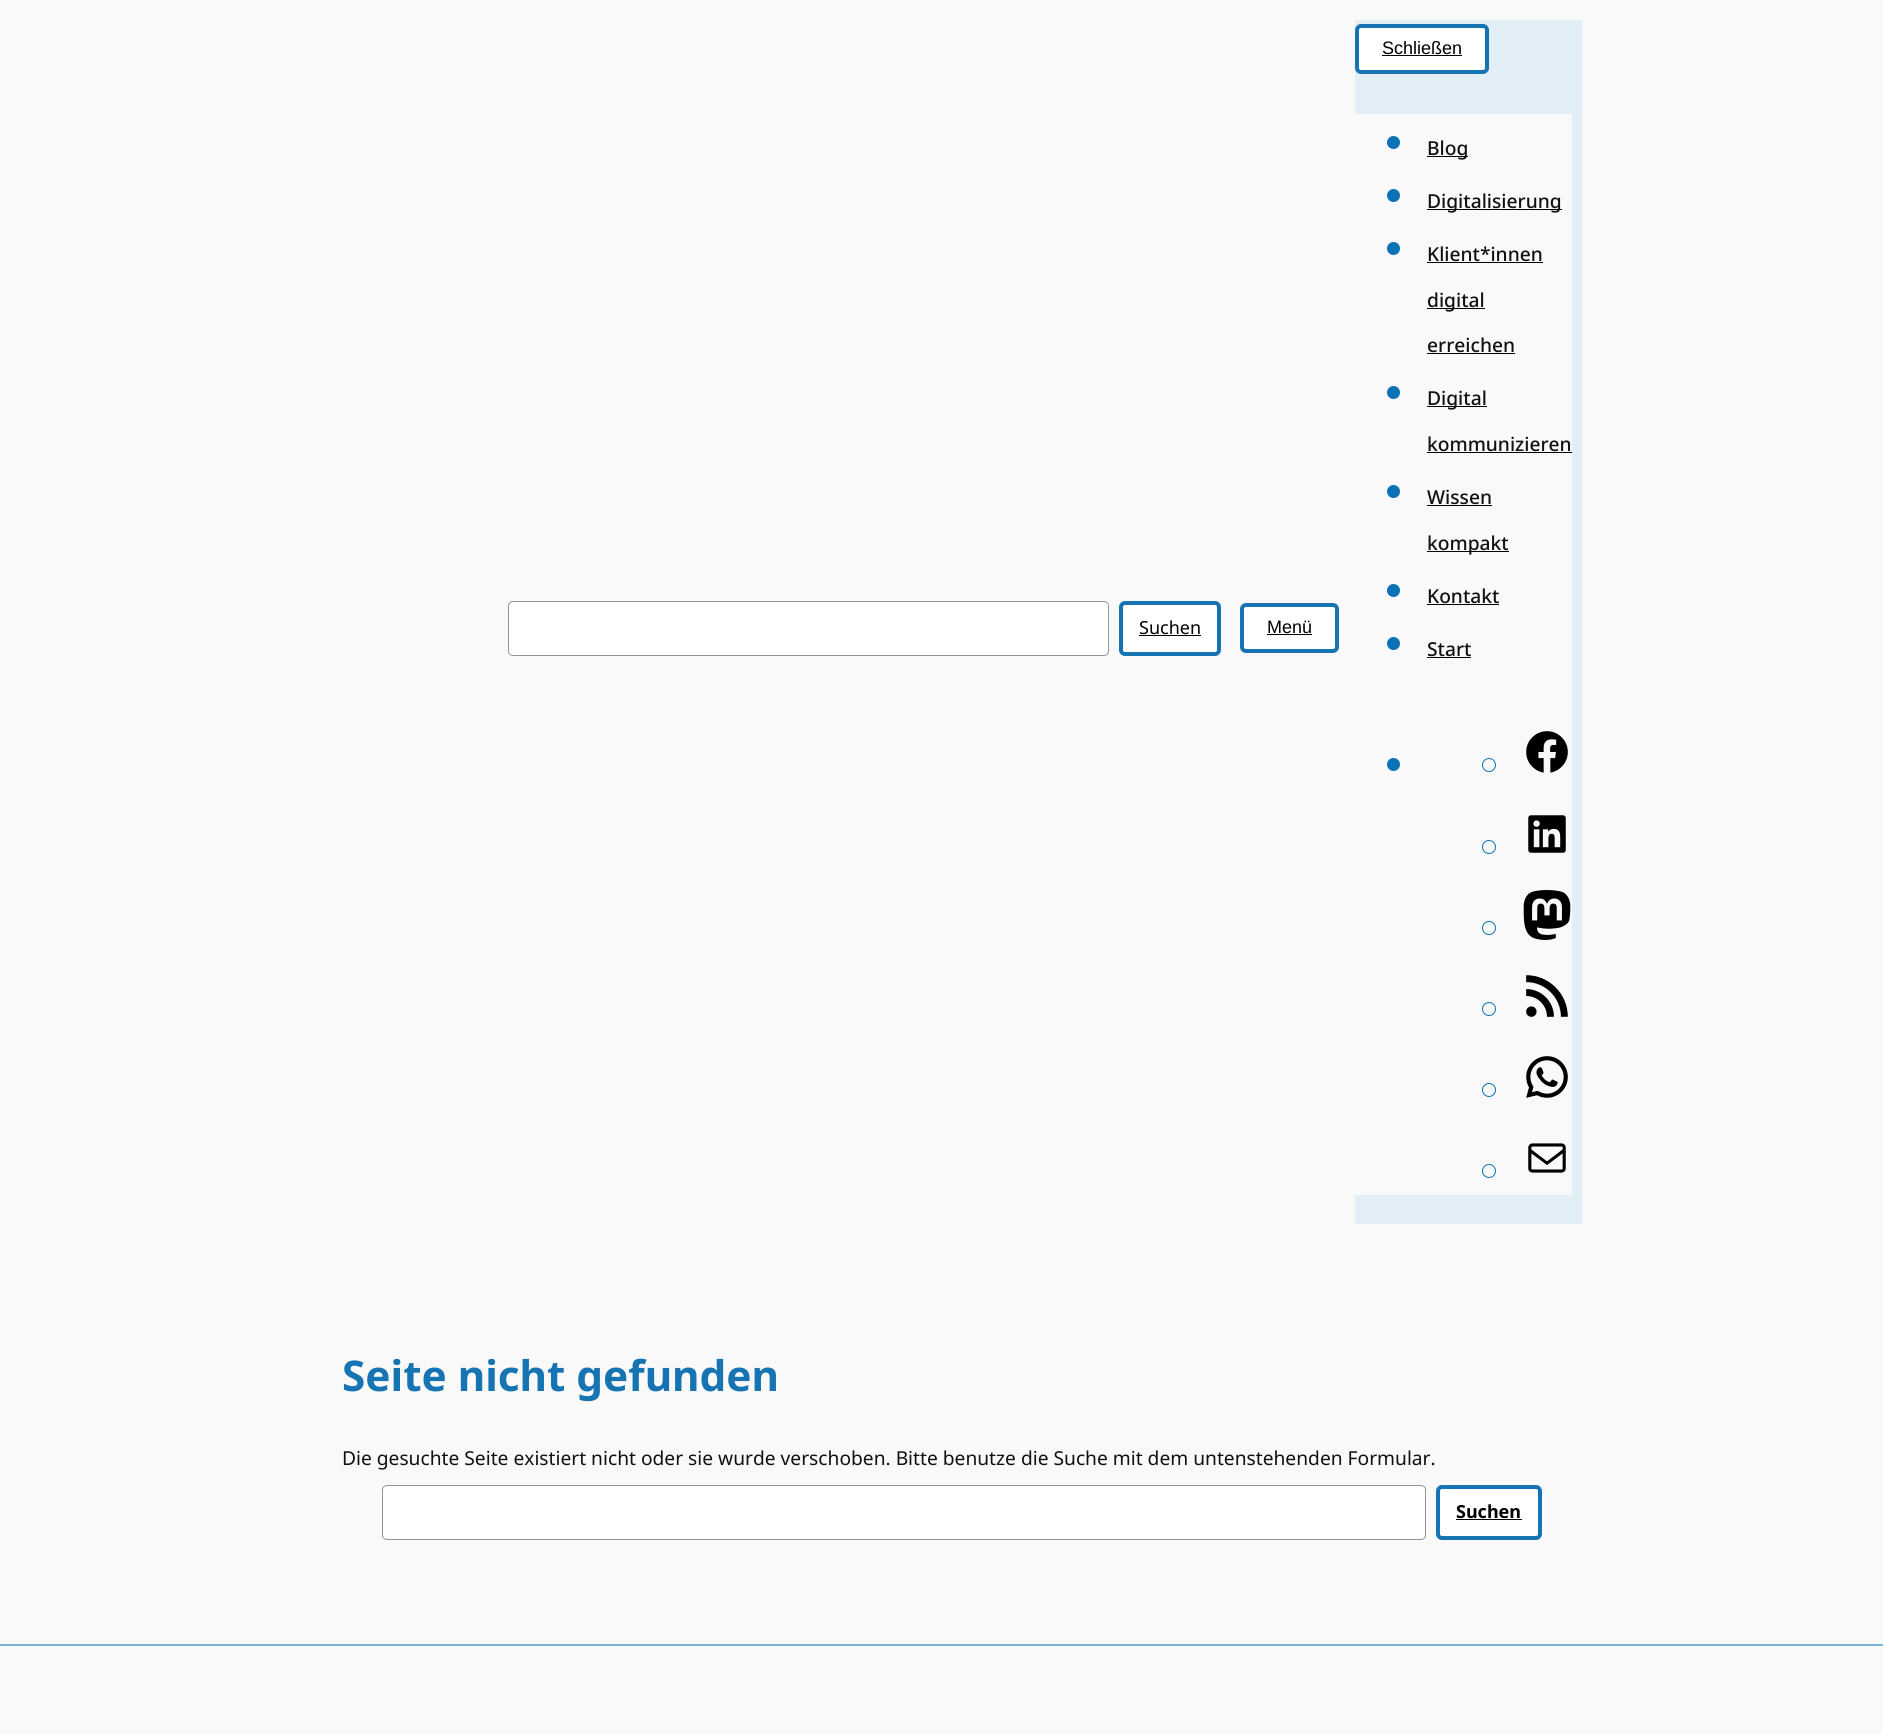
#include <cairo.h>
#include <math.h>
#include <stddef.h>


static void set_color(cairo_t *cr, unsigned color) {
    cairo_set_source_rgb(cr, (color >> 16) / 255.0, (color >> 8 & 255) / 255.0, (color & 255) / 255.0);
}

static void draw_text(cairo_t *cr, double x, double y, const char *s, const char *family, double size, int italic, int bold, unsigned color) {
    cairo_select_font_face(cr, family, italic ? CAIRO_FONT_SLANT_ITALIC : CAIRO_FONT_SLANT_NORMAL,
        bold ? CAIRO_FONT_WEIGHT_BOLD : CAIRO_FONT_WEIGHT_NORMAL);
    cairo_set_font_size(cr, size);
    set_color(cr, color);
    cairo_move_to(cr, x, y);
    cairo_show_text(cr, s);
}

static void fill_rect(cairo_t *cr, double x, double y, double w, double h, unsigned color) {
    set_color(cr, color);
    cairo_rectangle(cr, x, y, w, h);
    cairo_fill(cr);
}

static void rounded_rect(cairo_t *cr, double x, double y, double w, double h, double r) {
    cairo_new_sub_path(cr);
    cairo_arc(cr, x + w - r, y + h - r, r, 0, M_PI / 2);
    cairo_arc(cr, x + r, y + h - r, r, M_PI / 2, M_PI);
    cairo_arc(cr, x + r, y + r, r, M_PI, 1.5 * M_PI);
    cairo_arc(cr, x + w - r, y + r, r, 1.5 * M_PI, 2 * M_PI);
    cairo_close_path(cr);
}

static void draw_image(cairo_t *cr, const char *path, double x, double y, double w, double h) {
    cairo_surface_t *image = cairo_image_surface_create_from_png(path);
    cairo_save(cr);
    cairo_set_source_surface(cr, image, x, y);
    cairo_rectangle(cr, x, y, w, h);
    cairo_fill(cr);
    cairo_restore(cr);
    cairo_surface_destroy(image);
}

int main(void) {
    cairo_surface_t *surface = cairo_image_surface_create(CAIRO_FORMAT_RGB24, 1883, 1734);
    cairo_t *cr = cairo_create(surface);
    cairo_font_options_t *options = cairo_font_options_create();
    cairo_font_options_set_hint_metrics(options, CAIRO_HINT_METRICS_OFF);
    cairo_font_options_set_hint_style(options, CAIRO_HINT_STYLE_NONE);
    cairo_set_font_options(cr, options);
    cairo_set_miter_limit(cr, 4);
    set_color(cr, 0xF9F9F9);
    cairo_paint(cr);
    set_color(cr, 0xFFFFFF);
    rounded_rect(cr, 508.5, 601.5, 600, 54, 4.5);
    cairo_fill_preserve(cr);
    set_color(cr, 0x949494);
    cairo_set_line_width(cr, 1);
    cairo_stroke(cr);
    set_color(cr, 0xFFFFFF);
    rounded_rect(cr, 1121, 603, 98, 51, 4);
    cairo_fill_preserve(cr);
    set_color(cr, 0x1774B3);
    cairo_set_line_width(cr, 4);
    cairo_stroke(cr);
    draw_text(cr, 1139, 634, "Suchen", "Noto Sans", 18, 0, 0, 0x000000);
    fill_rect(cr, 1139, 635, 62, 1, 0x000000);
    set_color(cr, 0xFFFFFF);
    rounded_rect(cr, 1242, 605, 95, 46, 4);
    cairo_fill_preserve(cr);
    set_color(cr, 0x1774B3);
    cairo_stroke(cr);
    draw_text(cr, 1267, 633, "Menü", "Liberation Sans", 18, 0, 0, 0x000000);
    fill_rect(cr, 1267, 634, 45, 1, 0x000000);
    fill_rect(cr, 1355, 20, 227, 1204, 0xE2EFF7);
    set_color(cr, 0xFFFFFF);
    rounded_rect(cr, 1357, 26, 130, 46, 4);
    cairo_fill_preserve(cr);
    set_color(cr, 0x1774B3);
    cairo_stroke(cr);
    draw_text(cr, 1382, 54, "Schließen", "Liberation Sans", 18, 0, 0, 0x000000);
    fill_rect(cr, 1382, 55, 80, 1, 0x000000);
    fill_rect(cr, 1355, 114, 217, 1081, 0xF9F9F9);
    set_color(cr, 0x0B72B5);
    cairo_new_path(cr);
    cairo_arc(cr, 1393.5, 142.5, 6.5, 0, 2 * M_PI);
    cairo_fill(cr);
    fill_rect(cr, 1427, 156, 41, 1, 0x000000);
    draw_text(cr, 1427, 155, "Blog", "Noto Sans Medium", 19.2, 0, 0, 0x111111);
    set_color(cr, 0x0B72B5);
    cairo_new_path(cr);
    cairo_arc(cr, 1393.5, 195.5, 6.5, 0, 2 * M_PI);
    cairo_fill(cr);
    fill_rect(cr, 1427, 209, 135, 1, 0x000000);
    draw_text(cr, 1427, 208, "Digitalisierung", "Noto Sans Medium", 19.2, 0, 0, 0x111111);
    set_color(cr, 0x0B72B5);
    cairo_new_path(cr);
    cairo_arc(cr, 1393.5, 248.5, 6.5, 0, 2 * M_PI);
    cairo_fill(cr);
    draw_text(cr, 1427, 261, "Klient*innen", "Noto Sans Medium", 19.2, 0, 0, 0x111111);
    fill_rect(cr, 1427, 262, 116, 1, 0x000000);
    fill_rect(cr, 1427, 308, 58, 1, 0x000000);
    draw_text(cr, 1427, 307, "digital", "Noto Sans Medium", 19.2, 0, 0, 0x111111);
    draw_text(cr, 1427, 352, "erreichen", "Noto Sans Medium", 19.2, 0, 0, 0x111111);
    fill_rect(cr, 1427, 353, 88, 1, 0x000000);
    set_color(cr, 0x0B72B5);
    cairo_new_path(cr);
    cairo_arc(cr, 1393.5, 392.5, 6.5, 0, 2 * M_PI);
    cairo_fill(cr);
    fill_rect(cr, 1427, 406, 60, 1, 0x000000);
    draw_text(cr, 1427, 405, "Digital", "Noto Sans Medium", 19.2, 0, 0, 0x111111);
    draw_text(cr, 1427, 451, "kommunizieren", "Noto Sans Medium", 19.2, 0, 0, 0x111111);
    fill_rect(cr, 1427, 452, 145, 1, 0x000000);
    set_color(cr, 0x0B72B5);
    cairo_new_path(cr);
    cairo_arc(cr, 1393.5, 491.5, 6.5, 0, 2 * M_PI);
    cairo_fill(cr);
    draw_text(cr, 1427, 504, "Wissen", "Noto Sans Medium", 19.2, 0, 0, 0x111111);
    fill_rect(cr, 1427, 505, 65, 1, 0x000000);
    fill_rect(cr, 1427, 551, 82, 1, 0x000000);
    draw_text(cr, 1427, 550, "kompakt", "Noto Sans Medium", 19.2, 0, 0, 0x111111);
    set_color(cr, 0x0B72B5);
    cairo_new_path(cr);
    cairo_arc(cr, 1393.5, 590.5, 6.5, 0, 2 * M_PI);
    cairo_fill(cr);
    draw_text(cr, 1427, 603, "Kontakt", "Noto Sans Medium", 19.2, 0, 0, 0x111111);
    fill_rect(cr, 1427, 604, 72, 1, 0x000000);
    set_color(cr, 0x0B72B5);
    cairo_new_path(cr);
    cairo_arc(cr, 1393.5, 643.5, 6.5, 0, 2 * M_PI);
    cairo_fill(cr);
    draw_text(cr, 1427, 656, "Start", "Noto Sans Medium", 19.2, 0, 0, 0x111111);
    fill_rect(cr, 1427, 657, 44, 1, 0x000000);
    set_color(cr, 0x0B72B5);
    cairo_new_path(cr);
    cairo_arc(cr, 1393.5, 764.5, 6.5, 0, 2 * M_PI);
    cairo_fill(cr);
    cairo_arc(cr, 1489, 765, 6.5, 0, 2 * M_PI);
    cairo_set_line_width(cr, 1);
    cairo_stroke(cr);
    draw_image(cr, "assets/img1.png", 1526, 731, 42, 42);
    cairo_arc(cr, 1489, 847, 6.5, 0, 2 * M_PI);
    cairo_stroke(cr);
    draw_image(cr, "assets/img2.png", 1528, 815, 38, 38);
    cairo_arc(cr, 1489, 928, 6.5, 0, 2 * M_PI);
    cairo_stroke(cr);
    draw_image(cr, "assets/img3.png", 1523, 890, 48, 50);
    cairo_arc(cr, 1489, 1009, 6.5, 0, 2 * M_PI);
    cairo_stroke(cr);
    draw_image(cr, "assets/img4.png", 1526, 975, 42, 42);
    cairo_arc(cr, 1489, 1090, 6.5, 0, 2 * M_PI);
    cairo_stroke(cr);
    draw_image(cr, "assets/img5.png", 1526, 1056, 42, 42);
    cairo_arc(cr, 1489, 1171, 6.5, 0, 2 * M_PI);
    cairo_stroke(cr);
    draw_image(cr, "assets/img6.png", 1528, 1143, 38, 30);
    draw_text(cr, 342, 1391, "Seite nicht gefunden", "Noto Sans", 42.25, 0, 1, 0x1774B3);
    draw_text(cr, 342, 1465, "Die gesuchte Seite existiert nicht oder sie wurde verschoben. Bitte benutze die Suche mit dem untenstehenden Formular.", "Noto Sans", 19.2, 0, 0, 0x111111);
    set_color(cr, 0xFFFFFF);
    rounded_rect(cr, 382.5, 1485.5, 1043, 54, 4.5);
    cairo_fill_preserve(cr);
    set_color(cr, 0x949494);
    cairo_stroke(cr);
    set_color(cr, 0xFFFFFF);
    rounded_rect(cr, 1438, 1487, 102, 51, 4);
    cairo_fill_preserve(cr);
    set_color(cr, 0x1774B3);
    cairo_set_line_width(cr, 4);
    cairo_stroke(cr);
    draw_text(cr, 1456, 1518, "Suchen", "Noto Sans", 18, 0, 1, 0x000000);
    fill_rect(cr, 1456, 1519, 66, 1, 0x000000);
    fill_rect(cr, 0, 1644, 1883, 2, 0x7AB3D9);
    cairo_surface_write_to_png(surface, "output.png");
    cairo_font_options_destroy(options);
    cairo_destroy(cr);
    cairo_surface_destroy(surface);
    return 0;
}
